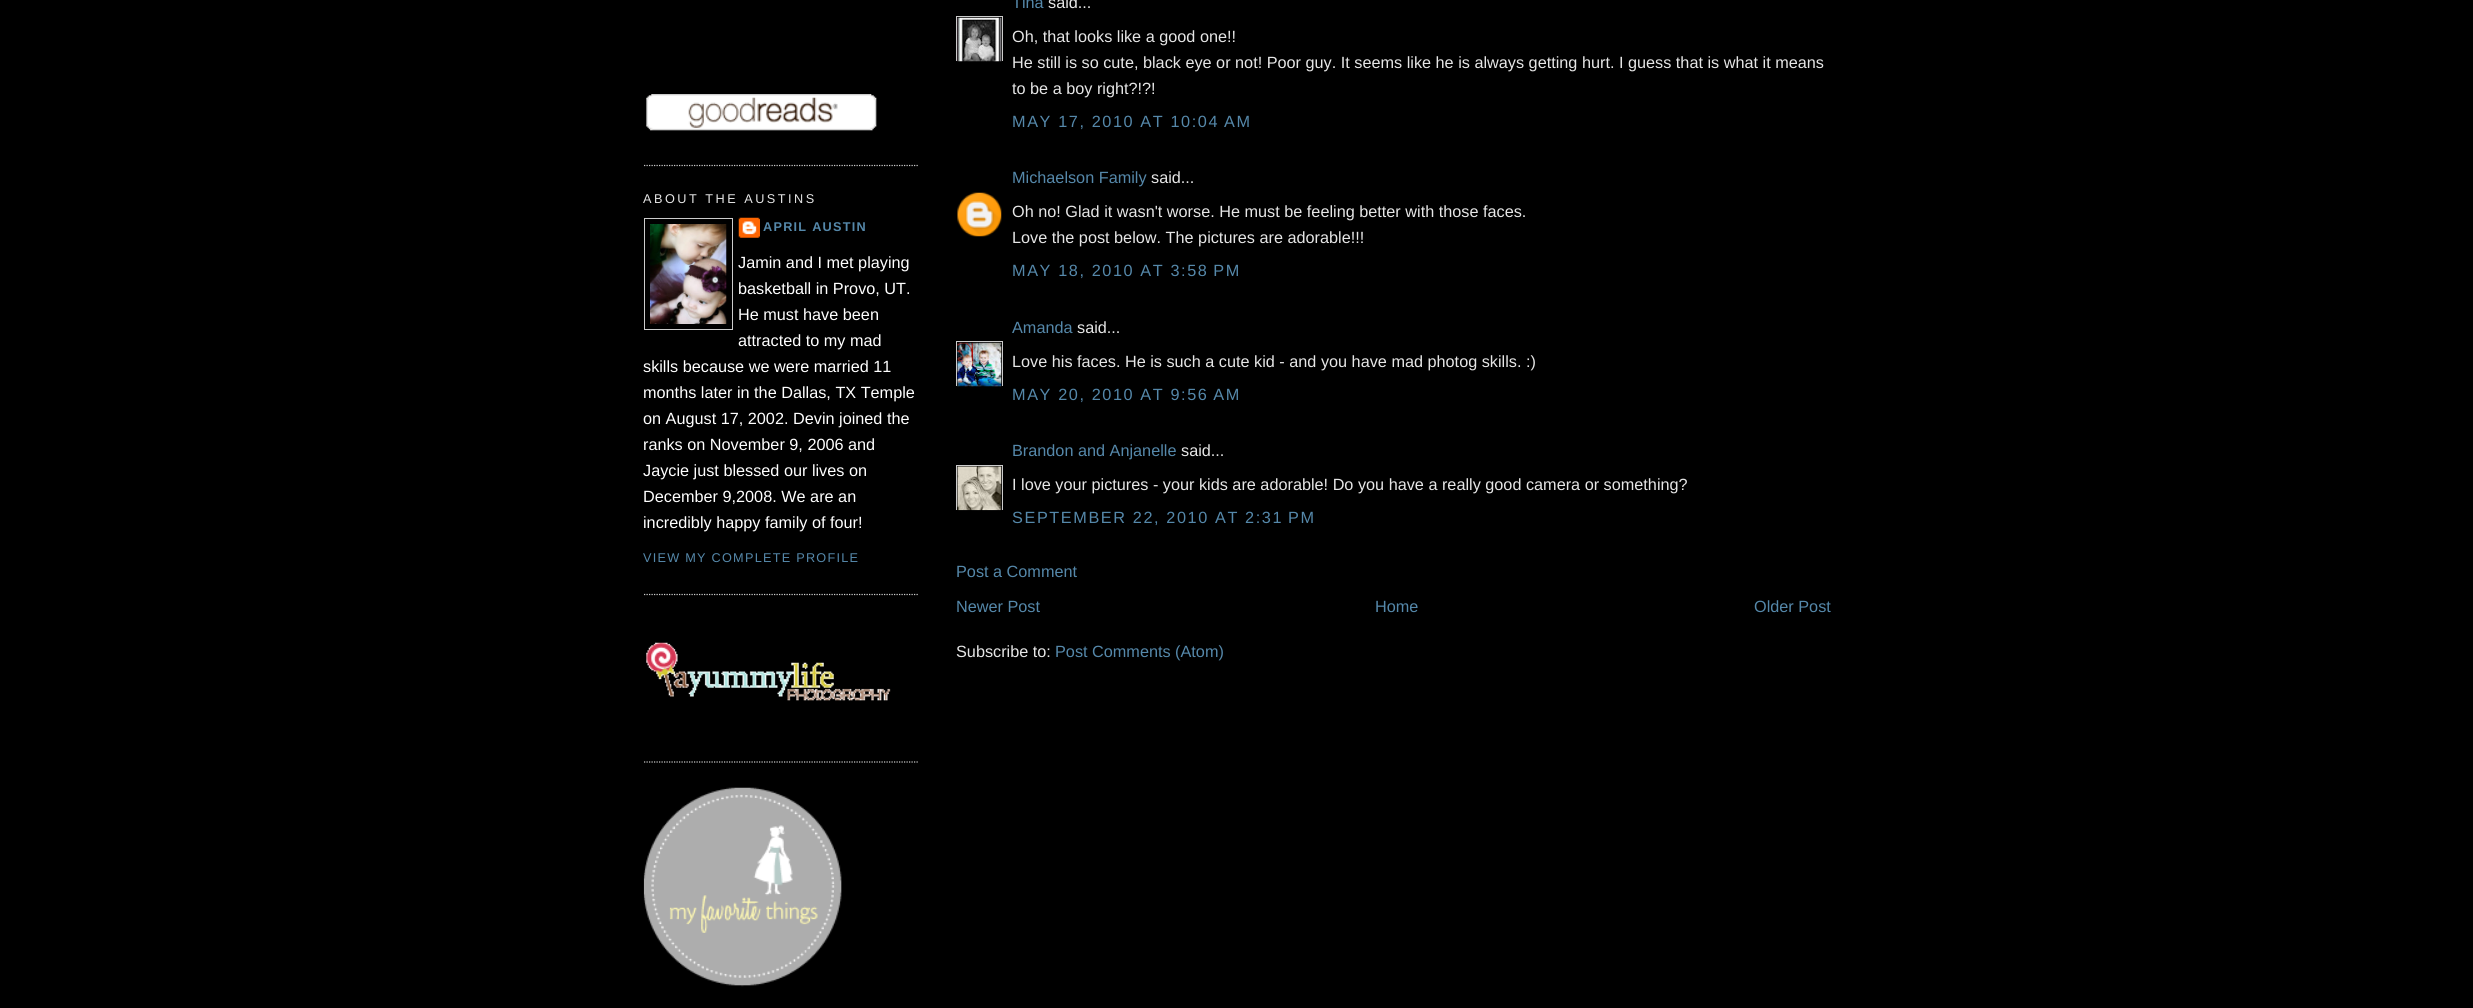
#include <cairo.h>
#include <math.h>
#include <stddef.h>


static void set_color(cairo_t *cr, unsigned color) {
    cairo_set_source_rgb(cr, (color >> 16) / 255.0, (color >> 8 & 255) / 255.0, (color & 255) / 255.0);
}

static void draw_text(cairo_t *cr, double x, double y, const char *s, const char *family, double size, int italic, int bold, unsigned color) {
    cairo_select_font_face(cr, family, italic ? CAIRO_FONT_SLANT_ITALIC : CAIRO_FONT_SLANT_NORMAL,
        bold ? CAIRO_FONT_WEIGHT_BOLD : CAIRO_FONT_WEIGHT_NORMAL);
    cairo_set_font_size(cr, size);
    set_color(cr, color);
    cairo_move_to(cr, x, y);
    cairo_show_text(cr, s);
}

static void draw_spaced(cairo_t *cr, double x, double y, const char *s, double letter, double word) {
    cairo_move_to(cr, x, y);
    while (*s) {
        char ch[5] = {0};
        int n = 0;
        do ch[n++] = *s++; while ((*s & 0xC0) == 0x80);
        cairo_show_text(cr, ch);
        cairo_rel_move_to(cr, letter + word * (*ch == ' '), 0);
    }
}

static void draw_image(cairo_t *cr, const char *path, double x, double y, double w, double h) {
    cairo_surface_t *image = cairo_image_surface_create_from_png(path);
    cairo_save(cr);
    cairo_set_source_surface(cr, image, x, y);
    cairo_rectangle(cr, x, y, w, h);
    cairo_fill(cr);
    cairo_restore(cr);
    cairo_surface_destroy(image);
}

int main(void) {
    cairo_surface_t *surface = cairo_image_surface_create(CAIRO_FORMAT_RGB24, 2473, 1008);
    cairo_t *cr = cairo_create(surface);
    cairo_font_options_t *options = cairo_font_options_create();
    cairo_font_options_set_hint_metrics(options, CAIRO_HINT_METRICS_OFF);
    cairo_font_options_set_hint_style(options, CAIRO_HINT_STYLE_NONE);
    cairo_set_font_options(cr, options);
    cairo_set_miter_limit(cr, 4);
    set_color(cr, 0x000000);
    cairo_paint(cr);
    cairo_new_path(cr);
    cairo_move_to(cr, 644, 165.5);
    cairo_line_to(cr, 919, 165.5);
    set_color(cr, 0xCCCCCC);
    cairo_set_line_width(cr, 1.2);
    cairo_set_dash(cr, (double[]){1.25, 1.25}, 2, 0);
    cairo_stroke(cr);
    draw_image(cr, "assets/img1.png", 646, 94, 231, 37);
    cairo_new_path(cr);
    cairo_move_to(cr, 644, 594.5);
    cairo_line_to(cr, 919, 594.5);
    cairo_stroke(cr);
    cairo_select_font_face(cr, "Liberation Sans", CAIRO_FONT_SLANT_NORMAL, CAIRO_FONT_WEIGHT_NORMAL);
    cairo_set_font_size(cr, 12.7);
    set_color(cr, 0xE6E6E6);
    draw_spaced(cr, 643, 203, "ABOUT THE AUSTINS", 2.5, 0);
    cairo_rectangle(cr, 644.5, 218.5, 88, 111);
    set_color(cr, 0xCCCCCC);
    cairo_set_line_width(cr, 1);
    cairo_set_dash(cr, NULL, 0, 0);
    cairo_stroke(cr);
    draw_image(cr, "assets/img2.png", 650, 224, 77, 100);
    draw_image(cr, "assets/img3.png", 738, 217, 22, 21);
    cairo_select_font_face(cr, "Liberation Sans", CAIRO_FONT_SLANT_NORMAL, CAIRO_FONT_WEIGHT_BOLD);
    set_color(cr, 0x5588AA);
    draw_spaced(cr, 763, 231, "APRIL AUSTIN", 1.25, 0);
    draw_text(cr, 738, 268, "Jamin and I met playing", "Liberation Sans", 16.25, 0, 0, 0xFFFFFF);
    draw_text(cr, 738, 294, "basketball in Provo, UT.", "Liberation Sans", 16.25, 0, 0, 0xFFFFFF);
    draw_text(cr, 738, 320, "He must have been", "Liberation Sans", 16.25, 0, 0, 0xFFFFFF);
    draw_text(cr, 738, 346, "attracted to my mad", "Liberation Sans", 16.25, 0, 0, 0xFFFFFF);
    draw_text(cr, 643, 372, "skills because we were married 11", "Liberation Sans", 16.25, 0, 0, 0xFFFFFF);
    draw_text(cr, 643, 398, "months later in the Dallas, TX Temple", "Liberation Sans", 16.25, 0, 0, 0xFFFFFF);
    draw_text(cr, 643, 424, "on August 17, 2002. Devin joined the", "Liberation Sans", 16.25, 0, 0, 0xFFFFFF);
    draw_text(cr, 643, 450, "ranks on November 9, 2006 and", "Liberation Sans", 16.25, 0, 0, 0xFFFFFF);
    draw_text(cr, 643, 476, "Jaycie just blessed our lives on", "Liberation Sans", 16.25, 0, 0, 0xFFFFFF);
    draw_text(cr, 643, 502, "December 9,2008. We are an", "Liberation Sans", 16.25, 0, 0, 0xFFFFFF);
    draw_text(cr, 643, 528, "incredibly happy family of four!", "Liberation Sans", 16.25, 0, 0, 0xFFFFFF);
    cairo_set_font_size(cr, 12.7);
    set_color(cr, 0x5588AA);
    draw_spaced(cr, 643, 562, "VIEW MY COMPLETE PROFILE", 1.25, 0);
    cairo_new_path(cr);
    cairo_move_to(cr, 644, 762);
    cairo_line_to(cr, 919, 762);
    set_color(cr, 0xCCCCCC);
    cairo_set_line_width(cr, 1.2);
    cairo_set_dash(cr, (double[]){1.25, 1.25}, 2, 0);
    cairo_stroke(cr);
    draw_image(cr, "assets/img4.png", 646, 642, 245, 59);
    draw_image(cr, "assets/img5.png", 643, 787, 199, 200);
    draw_text(cr, 1012, 8, "Tina", "Liberation Sans", 16.25, 0, 0, 0x5588AA);
    draw_text(cr, 1048, 8, "said...", "Liberation Sans", 16.25, 0, 0, 0xE6E6E6);
    cairo_save(cr);
    cairo_rectangle(cr, 956, 16, 47, 45);
    cairo_clip(cr);
    cairo_rectangle(cr, 956.5, 16.5, 46, 46);
    set_color(cr, 0xCCCCCC);
    cairo_set_line_width(cr, 1);
    cairo_set_dash(cr, NULL, 0, 0);
    cairo_stroke(cr);
    cairo_restore(cr);
    draw_image(cr, "assets/img6.png", 957, 17, 45, 45);
    draw_text(cr, 1012, 42, "Oh, that looks like a good one!!", "Liberation Sans", 16.25, 0, 0, 0xE6E6E6);
    draw_text(cr, 1012, 68, "He still is so cute, black eye or not! Poor guy. It seems like he is always getting hurt. I guess that is what it means", "Liberation Sans", 16.25, 0, 0, 0xE6E6E6);
    draw_text(cr, 1012, 94, "to be a boy right?!?!", "Liberation Sans", 16.25, 0, 0, 0xE6E6E6);
    set_color(cr, 0x5588AA);
    draw_spaced(cr, 1012, 127, "MAY 17, 2010 AT 10:04 AM", 1.6, 0);
    draw_text(cr, 1012, 183, "Michaelson Family", "Liberation Sans", 16.25, 0, 0, 0x5588AA);
    draw_text(cr, 1151, 183, "said...", "Liberation Sans", 16.25, 0, 0, 0xE6E6E6);
    draw_image(cr, "assets/img7.png", 957, 192, 45, 45);
    draw_text(cr, 1012, 217, "Oh no! Glad it wasn't worse. He must be feeling better with those faces.", "Liberation Sans", 16.25, 0, 0, 0xE6E6E6);
    draw_text(cr, 1012, 243, "Love the post below. The pictures are adorable!!!", "Liberation Sans", 16.25, 0, 0, 0xE6E6E6);
    set_color(cr, 0x5588AA);
    draw_spaced(cr, 1012, 276, "MAY 18, 2010 AT 3:58 PM", 1.6, 0);
    draw_text(cr, 1012, 333, "Amanda", "Liberation Sans", 16.25, 0, 0, 0x5588AA);
    draw_text(cr, 1077, 333, "said...", "Liberation Sans", 16.25, 0, 0, 0xE6E6E6);
    cairo_save(cr);
    cairo_rectangle(cr, 956, 341, 47, 45);
    cairo_clip(cr);
    cairo_rectangle(cr, 956.5, 341.5, 46, 46);
    set_color(cr, 0xCCCCCC);
    cairo_set_line_width(cr, 1);
    cairo_set_dash(cr, NULL, 0, 0);
    cairo_stroke(cr);
    cairo_restore(cr);
    draw_image(cr, "assets/img8.png", 957, 342, 45, 45);
    draw_text(cr, 1012, 367, "Love his faces. He is such a cute kid - and you have mad photog skills. :)", "Liberation Sans", 16.25, 0, 0, 0xE6E6E6);
    set_color(cr, 0x5588AA);
    draw_spaced(cr, 1012, 400, "MAY 20, 2010 AT 9:56 AM", 1.6, 0);
    draw_text(cr, 1012, 456, "Brandon and Anjanelle", "Liberation Sans", 16.25, 0, 0, 0x5588AA);
    draw_text(cr, 1181, 456, "said...", "Liberation Sans", 16.25, 0, 0, 0xE6E6E6);
    cairo_save(cr);
    cairo_rectangle(cr, 956, 465, 47, 45);
    cairo_clip(cr);
    cairo_rectangle(cr, 956.5, 465.5, 46, 45);
    set_color(cr, 0xCCCCCC);
    cairo_set_line_width(cr, 1);
    cairo_set_dash(cr, NULL, 0, 0);
    cairo_stroke(cr);
    cairo_restore(cr);
    draw_image(cr, "assets/img9.png", 957, 466, 45, 45);
    draw_text(cr, 1012, 490, "I love your pictures - your kids are adorable! Do you have a really good camera or something?", "Liberation Sans", 16.25, 0, 0, 0xE6E6E6);
    set_color(cr, 0x5588AA);
    draw_spaced(cr, 1012, 523, "SEPTEMBER 22, 2010 AT 2:31 PM", 1.6, 0);
    draw_text(cr, 956, 577, "Post a Comment", "Liberation Sans", 16.25, 0, 0, 0x5588AA);
    draw_text(cr, 956, 612, "Newer Post", "Liberation Sans", 16.25, 0, 0, 0x5588AA);
    draw_text(cr, 1375, 612, "Home", "Liberation Sans", 16.25, 0, 0, 0x5588AA);
    draw_text(cr, 1754, 612, "Older Post", "Liberation Sans", 16.25, 0, 0, 0x5588AA);
    draw_text(cr, 956, 657, "Subscribe to:", "Liberation Sans", 16.25, 0, 0, 0xE6E6E6);
    draw_text(cr, 1055, 657, "Post Comments (Atom)", "Liberation Sans", 16.25, 0, 0, 0x5588AA);
    cairo_surface_write_to_png(surface, "output.png");
    cairo_font_options_destroy(options);
    cairo_destroy(cr);
    cairo_surface_destroy(surface);
    return 0;
}
